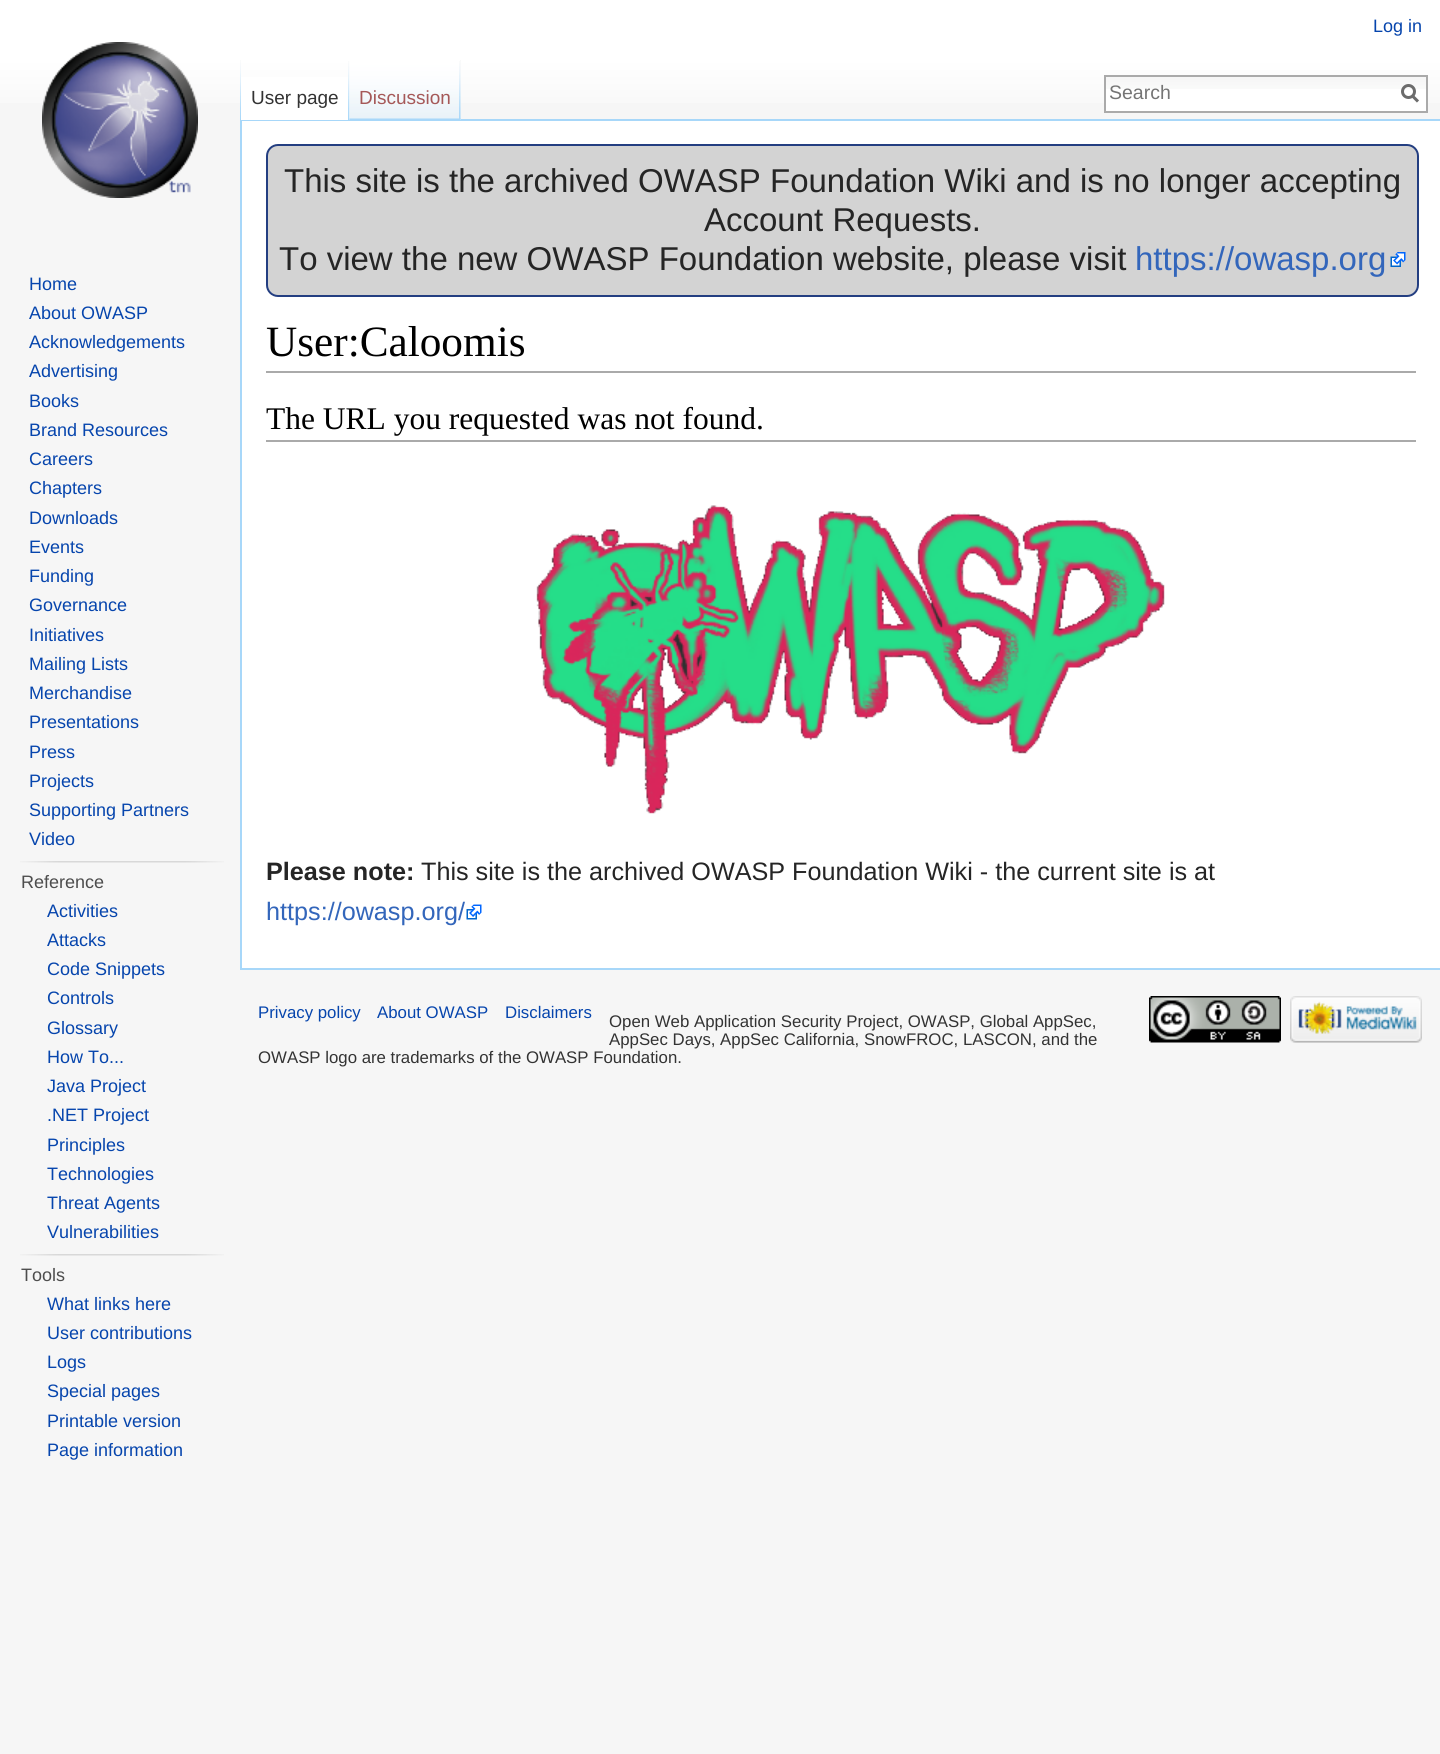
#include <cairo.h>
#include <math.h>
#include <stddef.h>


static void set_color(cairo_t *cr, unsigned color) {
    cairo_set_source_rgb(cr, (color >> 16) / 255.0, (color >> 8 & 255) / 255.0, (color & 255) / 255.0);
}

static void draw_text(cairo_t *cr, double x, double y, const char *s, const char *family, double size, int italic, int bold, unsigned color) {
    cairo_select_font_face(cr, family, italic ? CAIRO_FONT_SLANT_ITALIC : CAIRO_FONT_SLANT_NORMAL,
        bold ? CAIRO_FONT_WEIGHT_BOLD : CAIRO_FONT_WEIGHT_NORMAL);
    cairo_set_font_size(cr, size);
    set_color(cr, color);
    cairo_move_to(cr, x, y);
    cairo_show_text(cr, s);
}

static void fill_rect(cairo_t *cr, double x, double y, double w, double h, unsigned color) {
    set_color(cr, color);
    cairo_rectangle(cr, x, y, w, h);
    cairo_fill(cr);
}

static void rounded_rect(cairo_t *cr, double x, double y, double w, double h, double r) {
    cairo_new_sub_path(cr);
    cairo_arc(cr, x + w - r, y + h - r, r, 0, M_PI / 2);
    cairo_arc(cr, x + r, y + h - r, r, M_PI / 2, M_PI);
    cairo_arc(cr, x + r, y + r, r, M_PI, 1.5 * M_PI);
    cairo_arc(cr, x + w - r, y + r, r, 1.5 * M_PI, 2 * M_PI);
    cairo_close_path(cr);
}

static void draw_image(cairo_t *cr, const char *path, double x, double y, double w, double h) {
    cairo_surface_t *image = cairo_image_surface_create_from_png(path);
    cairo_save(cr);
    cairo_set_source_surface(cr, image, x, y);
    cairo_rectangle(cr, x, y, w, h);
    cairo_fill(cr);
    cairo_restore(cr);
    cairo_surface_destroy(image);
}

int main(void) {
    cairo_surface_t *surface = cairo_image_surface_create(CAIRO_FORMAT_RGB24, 1440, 1754);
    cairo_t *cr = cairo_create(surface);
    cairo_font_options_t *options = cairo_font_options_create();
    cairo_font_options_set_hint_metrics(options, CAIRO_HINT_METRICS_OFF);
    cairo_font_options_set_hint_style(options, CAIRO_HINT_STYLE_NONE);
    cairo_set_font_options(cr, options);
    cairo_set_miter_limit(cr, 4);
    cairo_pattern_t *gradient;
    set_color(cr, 0xF6F6F6);
    cairo_paint(cr);
    gradient = cairo_pattern_create_linear(720, 0, 720, 120);
    cairo_pattern_add_color_stop_rgba(gradient, 0.5, 1, 1, 1, 1);
    cairo_pattern_add_color_stop_rgba(gradient, 1, 0.965, 0.965, 0.965, 1);
    cairo_set_source(cr, gradient);
    cairo_pattern_destroy(gradient);
    cairo_rectangle(cr, 0, 0, 1440, 103);
    cairo_fill(cr);
    draw_text(cr, 1373, 32, "Log in", "Liberation Sans", 18, 0, 0, 0x0645AD);
    draw_image(cr, "assets/img1.png", 240, 60, 1, 59);
    fill_rect(cr, 240, 119, 1200, 2, 0xA7D7F9);
    fill_rect(cr, 240, 968, 1200, 2, 0xA7D7F9);
    fill_rect(cr, 240, 119, 2, 850, 0xA7D7F9);
    fill_rect(cr, 241, 77, 109, 43, 0xFFFFFF);
    draw_image(cr, "assets/img2.png", 348, 61, 2, 59);
    draw_text(cr, 251, 104, "User page", "Liberation Sans", 19, 0, 0, 0x333333);
    fill_rect(cr, 460, 60, 1, 60, 0xF3F3F3);
    draw_image(cr, "assets/img3.png", 349, 60, 112, 60);
    draw_image(cr, "assets/img4.png", 459, 61, 2, 59);
    draw_text(cr, 359, 104, "Discussion", "Liberation Sans", 19, 0, 0, 0xA55858);
    fill_rect(cr, 1106, 89, 320, 22, 0xFFFFFF);
    draw_image(cr, "assets/img5.png", 1106, 77, 320, 12);
    cairo_rectangle(cr, 1105, 76, 322, 36);
    set_color(cr, 0xAAAAAA);
    cairo_stroke(cr);
    draw_text(cr, 1109, 99, "Search", "Liberation Sans", 19.5, 0, 0, 0x757575);
    cairo_new_path(cr);
    cairo_move_to(cr, 1418, 101.5);
    cairo_line_to(cr, 1412, 95.5);
    set_color(cr, 0x6C6C6C);
    cairo_set_line_width(cr, 3);
    cairo_stroke(cr);
    cairo_arc(cr, 1408.5, 91.5, 6, 0, 2 * M_PI);
    cairo_stroke(cr);
    draw_image(cr, "assets/img6.png", 42, 42, 156, 156);
    draw_text(cr, 29, 290, "Home", "Liberation Sans", 18, 0, 0, 0x0645AD);
    draw_text(cr, 29, 319, "About OWASP", "Liberation Sans", 18, 0, 0, 0x0645AD);
    draw_text(cr, 29, 348, "Acknowledgements", "Liberation Sans", 18, 0, 0, 0x0645AD);
    draw_text(cr, 29, 377, "Advertising", "Liberation Sans", 18, 0, 0, 0x0645AD);
    draw_text(cr, 29, 407, "Books", "Liberation Sans", 18, 0, 0, 0x0645AD);
    draw_text(cr, 29, 436, "Brand Resources", "Liberation Sans", 18, 0, 0, 0x0645AD);
    draw_text(cr, 29, 465, "Careers", "Liberation Sans", 18, 0, 0, 0x0645AD);
    draw_text(cr, 29, 494, "Chapters", "Liberation Sans", 18, 0, 0, 0x0645AD);
    draw_text(cr, 29, 524, "Downloads", "Liberation Sans", 18, 0, 0, 0x0645AD);
    draw_text(cr, 29, 553, "Events", "Liberation Sans", 18, 0, 0, 0x0645AD);
    draw_text(cr, 29, 582, "Funding", "Liberation Sans", 18, 0, 0, 0x0645AD);
    draw_text(cr, 29, 611, "Governance", "Liberation Sans", 18, 0, 0, 0x0645AD);
    draw_text(cr, 29, 641, "Initiatives", "Liberation Sans", 18, 0, 0, 0x0645AD);
    draw_text(cr, 29, 670, "Mailing Lists", "Liberation Sans", 18, 0, 0, 0x0645AD);
    draw_text(cr, 29, 699, "Merchandise", "Liberation Sans", 18, 0, 0, 0x0645AD);
    draw_text(cr, 29, 728, "Presentations", "Liberation Sans", 18, 0, 0, 0x0645AD);
    draw_text(cr, 29, 758, "Press", "Liberation Sans", 18, 0, 0, 0x0645AD);
    draw_text(cr, 29, 787, "Projects", "Liberation Sans", 18, 0, 0, 0x0645AD);
    draw_text(cr, 29, 816, "Supporting Partners", "Liberation Sans", 18, 0, 0, 0x0645AD);
    draw_text(cr, 29, 845, "Video", "Liberation Sans", 18, 0, 0, 0x0645AD);
    draw_image(cr, "assets/img7.png", 20, 861, 204, 2);
    draw_text(cr, 21, 888, "Reference", "Liberation Sans", 18, 0, 0, 0x4D4D4D);
    draw_text(cr, 47, 917, "Activities", "Liberation Sans", 18, 0, 0, 0x0645AD);
    draw_text(cr, 47, 946, "Attacks", "Liberation Sans", 18, 0, 0, 0x0645AD);
    draw_text(cr, 47, 975, "Code Snippets", "Liberation Sans", 18, 0, 0, 0x0645AD);
    draw_text(cr, 47, 1004, "Controls", "Liberation Sans", 18, 0, 0, 0x0645AD);
    draw_text(cr, 47, 1034, "Glossary", "Liberation Sans", 18, 0, 0, 0x0645AD);
    draw_text(cr, 47, 1063, "How To...", "Liberation Sans", 18, 0, 0, 0x0645AD);
    draw_text(cr, 47, 1092, "Java Project", "Liberation Sans", 18, 0, 0, 0x0645AD);
    draw_text(cr, 47, 1121, ".NET Project", "Liberation Sans", 18, 0, 0, 0x0645AD);
    draw_text(cr, 47, 1151, "Principles", "Liberation Sans", 18, 0, 0, 0x0645AD);
    draw_text(cr, 47, 1180, "Technologies", "Liberation Sans", 18, 0, 0, 0x0645AD);
    draw_text(cr, 47, 1209, "Threat Agents", "Liberation Sans", 18, 0, 0, 0x0645AD);
    draw_text(cr, 47, 1238, "Vulnerabilities", "Liberation Sans", 18, 0, 0, 0x0645AD);
    draw_image(cr, "assets/img7.png", 20, 1254, 204, 2);
    draw_text(cr, 21, 1281, "Tools", "Liberation Sans", 18, 0, 0, 0x4D4D4D);
    draw_text(cr, 47, 1310, "What links here", "Liberation Sans", 18, 0, 0, 0x0645AD);
    draw_text(cr, 47, 1339, "User contributions", "Liberation Sans", 18, 0, 0, 0x0645AD);
    draw_text(cr, 47, 1368, "Logs", "Liberation Sans", 18, 0, 0, 0x0645AD);
    draw_text(cr, 47, 1397, "Special pages", "Liberation Sans", 18, 0, 0, 0x0645AD);
    draw_text(cr, 47, 1427, "Printable version", "Liberation Sans", 18, 0, 0, 0x0645AD);
    draw_text(cr, 47, 1456, "Page information", "Liberation Sans", 18, 0, 0, 0x0645AD);
    fill_rect(cr, 242, 121, 1198, 847, 0xFFFFFF);
    set_color(cr, 0xD3D3D3);
    rounded_rect(cr, 267, 145, 1151, 151, 11);
    cairo_fill_preserve(cr);
    set_color(cr, 0x233E81);
    cairo_set_line_width(cr, 2);
    cairo_stroke(cr);
    draw_text(cr, 284, 192, "This site is the archived OWASP Foundation Wiki and is no longer accepting", "Liberation Sans", 33, 0, 0, 0x252525);
    draw_text(cr, 704, 231, "Account Requests.", "Liberation Sans", 33, 0, 0, 0x252525);
    draw_text(cr, 279, 270, "To view the new OWASP Foundation website, please visit", "Liberation Sans", 33, 0, 0, 0x252525);
    draw_text(cr, 1135, 270, "https://owasp.org", "Liberation Sans", 33, 0, 0, 0x3366BB);
    draw_image(cr, "assets/img8.png", 1390, 252, 16, 15);
    fill_rect(cr, 266, 371, 1150, 2, 0xAAAAAA);
    draw_text(cr, 266, 356, "User:Caloomis", "Liberation Serif", 43.25, 0, 0, 0x000000);
    fill_rect(cr, 266, 440, 1150, 2, 0xAAAAAA);
    draw_text(cr, 266, 429, "The URL you requested was not found.", "Liberation Serif", 31.5, 0, 0, 0x000000);
    draw_image(cr, "assets/img9.png", 536, 505, 629, 309);
    draw_text(cr, 266, 880, "Please note:", "Liberation Sans", 25.2, 0, 1, 0x252525);
    draw_text(cr, 421, 880, "This site is the archived OWASP Foundation Wiki - the current site is at", "Liberation Sans", 25.2, 0, 0, 0x252525);
    draw_text(cr, 266, 920, "https://owasp.org/", "Liberation Sans", 25.2, 0, 0, 0x3366BB);
    draw_image(cr, "assets/img10.png", 466, 904, 16, 16);
    draw_text(cr, 258, 1018, "Privacy policy", "Liberation Sans", 16.8, 0, 0, 0x0645AD);
    draw_text(cr, 377, 1018, "About OWASP", "Liberation Sans", 16.8, 0, 0, 0x0645AD);
    draw_text(cr, 505, 1018, "Disclaimers", "Liberation Sans", 16.8, 0, 0, 0x0645AD);
    draw_image(cr, "assets/img11.png", 1149, 996, 132, 47);
    draw_image(cr, "assets/img12.png", 1290, 996, 132, 47);
    draw_text(cr, 609, 1027, "Open Web Application Security Project, OWASP, Global AppSec,", "Liberation Sans", 16.8, 0, 0, 0x333333);
    draw_text(cr, 609, 1045, "AppSec Days, AppSec California, SnowFROC, LASCON, and the", "Liberation Sans", 16.8, 0, 0, 0x333333);
    draw_text(cr, 258, 1063, "OWASP logo are trademarks of the OWASP Foundation.", "Liberation Sans", 16.8, 0, 0, 0x333333);
    cairo_surface_write_to_png(surface, "output.png");
    cairo_font_options_destroy(options);
    cairo_destroy(cr);
    cairo_surface_destroy(surface);
    return 0;
}
